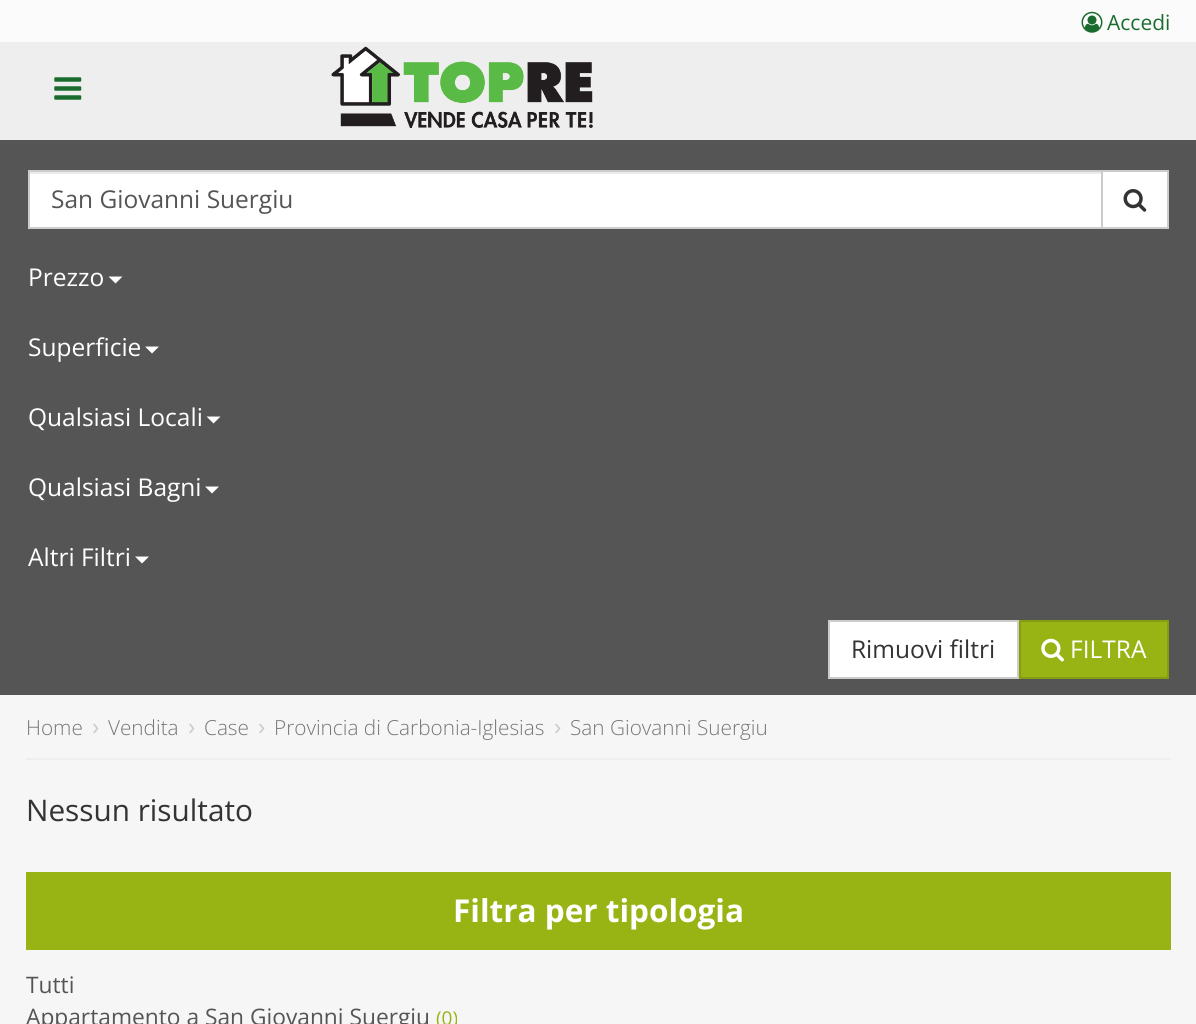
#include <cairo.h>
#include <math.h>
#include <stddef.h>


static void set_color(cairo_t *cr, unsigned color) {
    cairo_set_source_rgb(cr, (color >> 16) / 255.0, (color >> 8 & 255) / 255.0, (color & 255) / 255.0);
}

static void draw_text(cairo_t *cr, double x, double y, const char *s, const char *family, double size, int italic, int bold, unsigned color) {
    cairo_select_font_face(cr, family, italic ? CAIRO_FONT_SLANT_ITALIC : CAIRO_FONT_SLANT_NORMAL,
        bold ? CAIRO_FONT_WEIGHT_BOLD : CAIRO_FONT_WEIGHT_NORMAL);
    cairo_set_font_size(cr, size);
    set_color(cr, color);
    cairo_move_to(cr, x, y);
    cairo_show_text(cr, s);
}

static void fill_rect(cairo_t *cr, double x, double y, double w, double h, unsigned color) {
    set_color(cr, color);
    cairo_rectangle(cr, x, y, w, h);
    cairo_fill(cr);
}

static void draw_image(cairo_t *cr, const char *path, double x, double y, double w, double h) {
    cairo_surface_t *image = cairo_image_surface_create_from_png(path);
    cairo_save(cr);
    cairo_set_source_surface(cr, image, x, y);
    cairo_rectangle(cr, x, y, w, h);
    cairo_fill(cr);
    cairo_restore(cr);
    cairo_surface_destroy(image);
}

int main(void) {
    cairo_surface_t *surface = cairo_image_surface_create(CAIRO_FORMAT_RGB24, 1196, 1024);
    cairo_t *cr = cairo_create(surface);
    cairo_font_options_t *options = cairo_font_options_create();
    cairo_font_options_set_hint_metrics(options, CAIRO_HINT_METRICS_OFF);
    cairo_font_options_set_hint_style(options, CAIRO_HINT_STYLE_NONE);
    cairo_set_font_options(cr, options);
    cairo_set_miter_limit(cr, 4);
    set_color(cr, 0xF6F6F6);
    cairo_paint(cr);
    fill_rect(cr, 0, 0, 1196, 42, 0xFBFBFB);
    draw_image(cr, "assets/img1.png", 1081, 11, 22, 22);
    draw_text(cr, 1107, 30, "Accedi", "Open Sans", 21, 0, 0, 0x196C2D);
    fill_rect(cr, 0, 42, 1196, 98, 0xEEEEEE);
    draw_image(cr, "assets/img2.png", 54, 77, 28, 23);
    draw_image(cr, "assets/img3.png", 331, 46, 262, 83);
    fill_rect(cr, 0, 140, 1196, 555, 0x555555);
    fill_rect(cr, 30, 174, 1071, 53, 0xFFFFFF);
    fill_rect(cr, 30, 172, 1071, 2, 0xECECEC);
    cairo_rectangle(cr, 29, 171, 1073, 57);
    set_color(cr, 0xCCCCCC);
    cairo_stroke(cr);
    draw_text(cr, 51, 208, "San Giovanni Suergiu", "Open Sans", 24.5, 0, 0, 0x555555);
    set_color(cr, 0xFFFFFF);
    cairo_rectangle(cr, 1102, 171, 66, 57);
    cairo_fill_preserve(cr);
    set_color(cr, 0xCCCCCC);
    cairo_stroke(cr);
    draw_image(cr, "assets/img4.png", 1123, 189, 24, 23);
    draw_text(cr, 28, 286, "Prezzo", "Open Sans", 24.5, 0, 0, 0xFFFFFF);
    cairo_new_path(cr);
    cairo_move_to(cr, 108.5, 276.5);
    cairo_line_to(cr, 122.5, 276.5);
    cairo_line_to(cr, 115.5, 283.5);
    cairo_close_path(cr);
    cairo_fill(cr);
    draw_text(cr, 28, 356, "Superficie", "Open Sans", 24.5, 0, 0, 0xFFFFFF);
    cairo_new_path(cr);
    cairo_move_to(cr, 145, 346.5);
    cairo_line_to(cr, 159, 346.5);
    cairo_line_to(cr, 152, 353.5);
    cairo_close_path(cr);
    cairo_fill(cr);
    draw_text(cr, 28, 426, "Qualsiasi Locali", "Open Sans", 24.5, 0, 0, 0xFFFFFF);
    cairo_new_path(cr);
    cairo_move_to(cr, 206.5, 416.5);
    cairo_line_to(cr, 220.5, 416.5);
    cairo_line_to(cr, 213.5, 423.5);
    cairo_close_path(cr);
    cairo_fill(cr);
    draw_text(cr, 28, 496, "Qualsiasi Bagni", "Open Sans", 24.5, 0, 0, 0xFFFFFF);
    cairo_new_path(cr);
    cairo_move_to(cr, 205, 486.5);
    cairo_line_to(cr, 219, 486.5);
    cairo_line_to(cr, 212, 493.5);
    cairo_close_path(cr);
    cairo_fill(cr);
    draw_text(cr, 28, 566, "Altri Filtri", "Open Sans", 24.5, 0, 0, 0xFFFFFF);
    cairo_new_path(cr);
    cairo_move_to(cr, 135, 556.5);
    cairo_line_to(cr, 149, 556.5);
    cairo_line_to(cr, 142, 563.5);
    cairo_close_path(cr);
    cairo_fill(cr);
    cairo_rectangle(cr, 829, 621, 189, 57);
    cairo_fill_preserve(cr);
    set_color(cr, 0xCCCCCC);
    cairo_stroke(cr);
    draw_text(cr, 851, 658, "Rimuovi filtri", "Open Sans", 24.5, 0, 0, 0x333333);
    set_color(cr, 0x98B414);
    cairo_rectangle(cr, 1020, 621, 148, 57);
    cairo_fill_preserve(cr);
    set_color(cr, 0x859D11);
    cairo_stroke(cr);
    draw_image(cr, "assets/img5.png", 1041, 638, 23, 24);
    draw_text(cr, 1070, 658, "FILTRA", "Open Sans", 24.5, 0, 0, 0xFFFFFF);
    fill_rect(cr, 26, 758, 1145, 2, 0xEEEEEE);
    draw_text(cr, 26, 735, "Home", "Open Sans Light", 20.75, 0, 0, 0x777777);
    draw_text(cr, 92, 735, "›", "Open Sans", 24.5, 0, 0, 0xCCCCCC);
    draw_text(cr, 108, 735, "Vendita", "Open Sans Light", 20.75, 0, 0, 0x777777);
    draw_text(cr, 188, 735, "›", "Open Sans", 24.5, 0, 0, 0xCCCCCC);
    draw_text(cr, 204, 735, "Case", "Open Sans Light", 20.75, 0, 0, 0x777777);
    draw_text(cr, 258, 735, "›", "Open Sans", 24.5, 0, 0, 0xCCCCCC);
    draw_text(cr, 274, 735, "Provincia di Carbonia-Iglesias", "Open Sans Light", 20.75, 0, 0, 0x777777);
    draw_text(cr, 554, 735, "›", "Open Sans", 24.5, 0, 0, 0xCCCCCC);
    draw_text(cr, 570, 735, "San Giovanni Suergiu", "Open Sans Light", 20.75, 0, 0, 0x777777);
    draw_text(cr, 26, 821, "Nessun risultato", "Open Sans", 29.75, 0, 0, 0x333333);
    fill_rect(cr, 26, 872, 1145, 78, 0x98B414);
    draw_text(cr, 453, 922, "Filtra per tipologia", "Open Sans", 31.5, 0, 1, 0xFFFFFF);
    draw_text(cr, 26, 993, "Tutti", "Open Sans", 22.75, 0, 0, 0x555555);
    draw_text(cr, 26, 1025, "Appartamento a San Giovanni Suergiu", "Open Sans", 22.75, 0, 0, 0x555555);
    draw_text(cr, 436, 1025, "(0)", "Open Sans", 19, 0, 0, 0x98B414);
    cairo_surface_write_to_png(surface, "output.png");
    cairo_font_options_destroy(options);
    cairo_destroy(cr);
    cairo_surface_destroy(surface);
    return 0;
}
